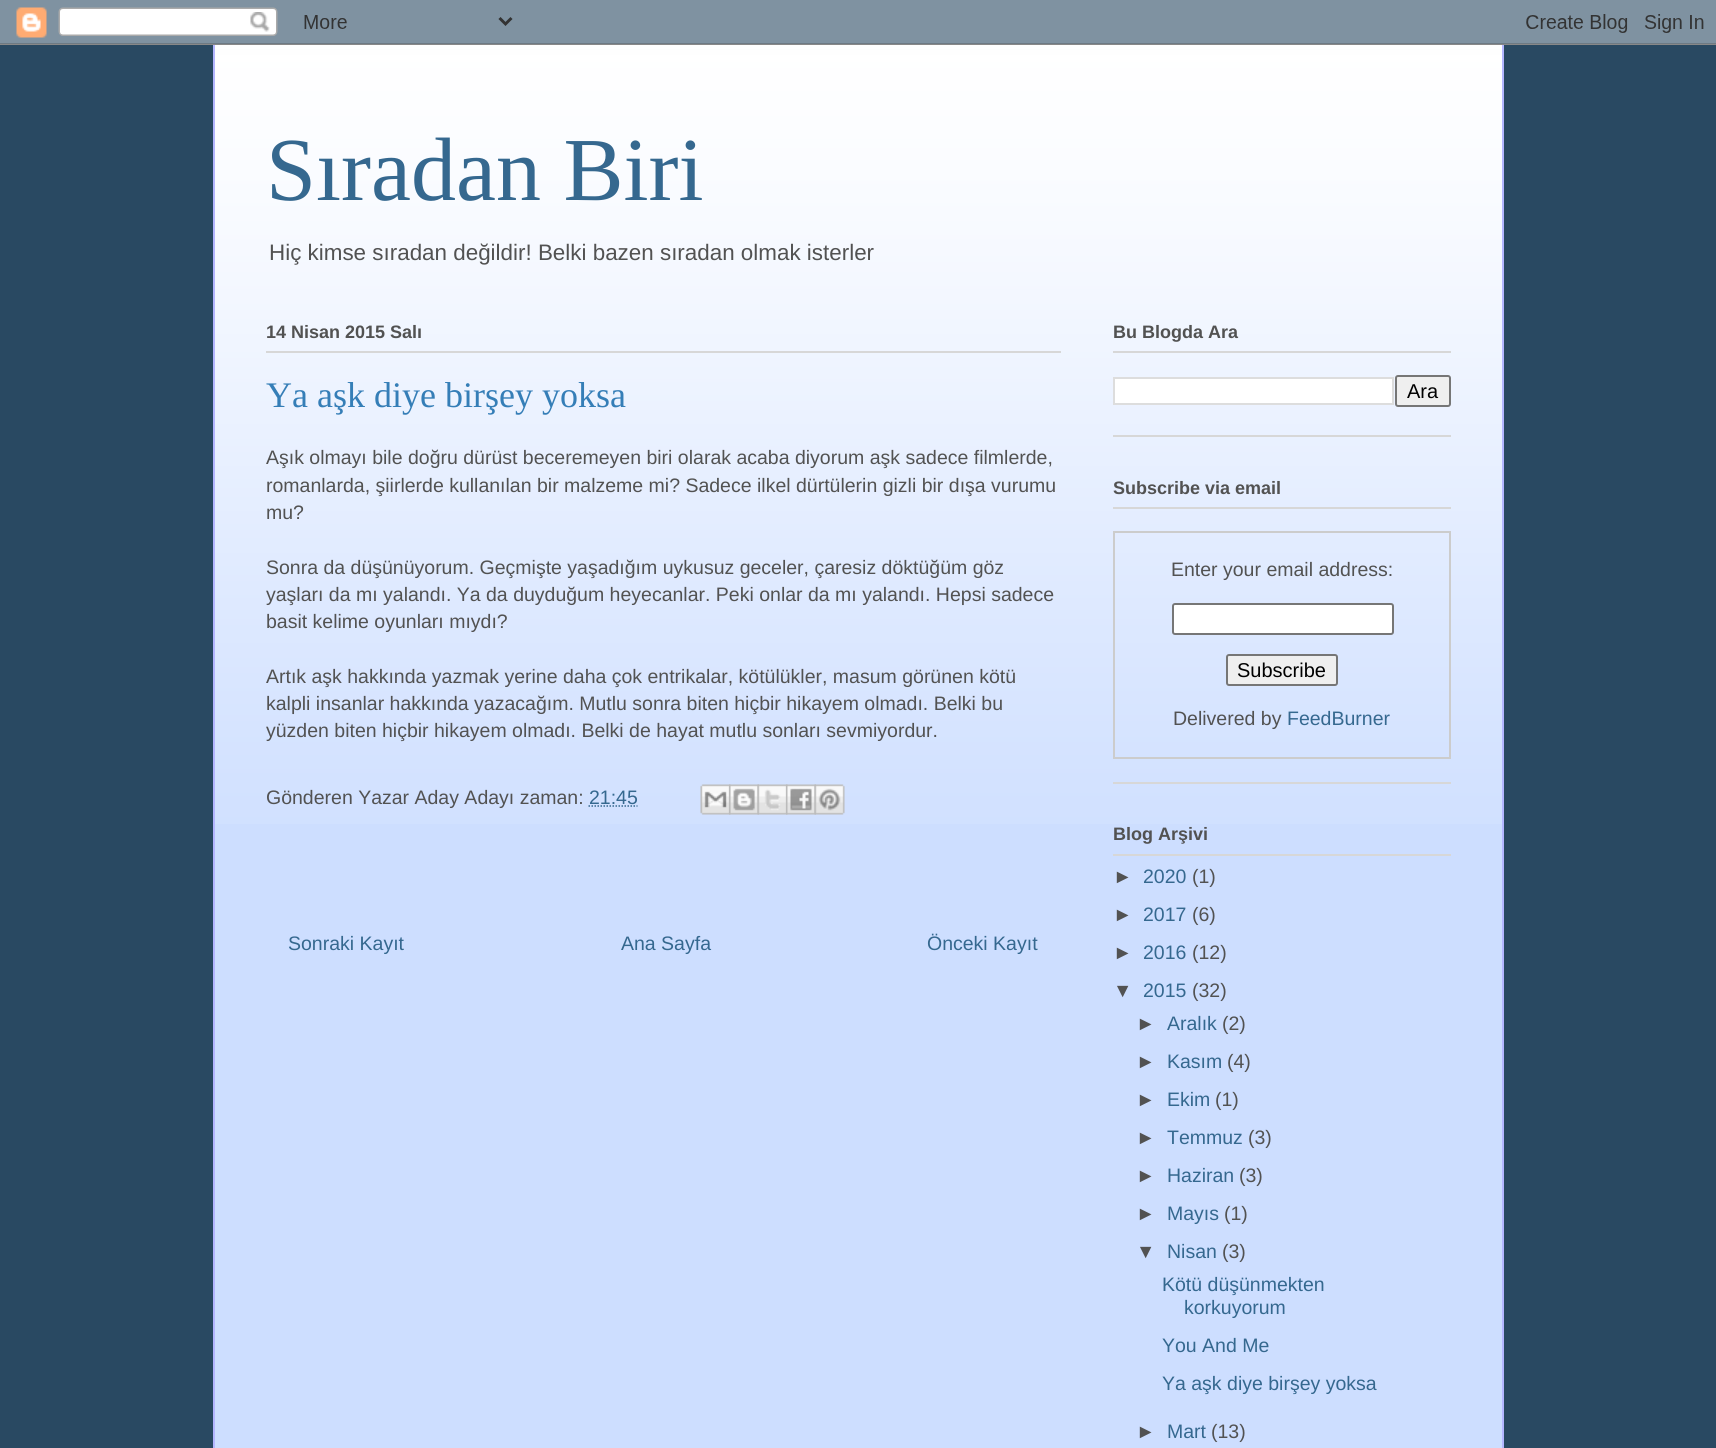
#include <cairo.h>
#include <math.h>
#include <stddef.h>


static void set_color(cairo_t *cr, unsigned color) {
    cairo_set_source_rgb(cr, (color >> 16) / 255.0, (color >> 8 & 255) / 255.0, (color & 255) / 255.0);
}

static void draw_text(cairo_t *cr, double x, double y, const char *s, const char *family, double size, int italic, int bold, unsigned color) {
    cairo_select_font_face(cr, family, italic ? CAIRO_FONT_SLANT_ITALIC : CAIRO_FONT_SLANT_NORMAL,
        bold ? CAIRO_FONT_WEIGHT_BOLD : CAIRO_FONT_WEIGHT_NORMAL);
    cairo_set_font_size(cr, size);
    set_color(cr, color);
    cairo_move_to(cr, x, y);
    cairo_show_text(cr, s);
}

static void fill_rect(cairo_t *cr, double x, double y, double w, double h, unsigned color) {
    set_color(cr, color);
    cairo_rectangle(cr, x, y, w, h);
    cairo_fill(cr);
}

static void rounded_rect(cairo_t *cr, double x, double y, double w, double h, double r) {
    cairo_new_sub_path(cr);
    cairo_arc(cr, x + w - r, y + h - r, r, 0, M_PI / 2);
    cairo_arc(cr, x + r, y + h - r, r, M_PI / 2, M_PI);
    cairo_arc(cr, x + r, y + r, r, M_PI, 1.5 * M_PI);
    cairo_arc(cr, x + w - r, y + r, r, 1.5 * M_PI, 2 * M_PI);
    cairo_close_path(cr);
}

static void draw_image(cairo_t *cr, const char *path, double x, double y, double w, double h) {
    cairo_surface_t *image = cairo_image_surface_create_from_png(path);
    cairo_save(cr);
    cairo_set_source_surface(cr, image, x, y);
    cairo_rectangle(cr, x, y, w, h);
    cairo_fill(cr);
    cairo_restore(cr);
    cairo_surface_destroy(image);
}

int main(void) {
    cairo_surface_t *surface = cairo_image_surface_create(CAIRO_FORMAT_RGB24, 1716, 1448);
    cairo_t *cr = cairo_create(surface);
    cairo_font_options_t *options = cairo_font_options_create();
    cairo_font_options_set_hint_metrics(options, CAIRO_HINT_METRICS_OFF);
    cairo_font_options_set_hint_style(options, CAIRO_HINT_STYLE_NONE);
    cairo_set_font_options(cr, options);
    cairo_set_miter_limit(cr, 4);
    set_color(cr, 0x294962);
    cairo_paint(cr);
    draw_image(cr, "assets/img1.png", 0, 0, 1716, 45);
    fill_rect(cr, 215, 55, 1287, 1393, 0xCDDEFF);
    draw_image(cr, "assets/img2.png", 215, 45, 1287, 779);
    fill_rect(cr, 1502, 45, 2, 1403, 0xB4B6FF);
    fill_rect(cr, 213, 45, 2, 1403, 0xB4B6FF);
    draw_text(cr, 266, 200, "Sıradan Biri", "Liberation Serif", 90, 0, 0, 0x35688F);
    draw_text(cr, 269, 260, "Hiç kimse sıradan değildir! Belki bazen sıradan olmak isterler", "Liberation Sans", 22.4, 0, 0, 0x525252);
    fill_rect(cr, 266, 351, 795, 2, 0xD7D7D7);
    draw_text(cr, 266, 338, "14 Nisan 2015 Salı", "Liberation Sans", 18, 0, 1, 0x525252);
    draw_text(cr, 266, 407, "Ya aşk diye birşey yoksa", "Liberation Serif", 36, 0, 0, 0x357EB7);
    draw_text(cr, 266, 464, "Aşık olmayı bile doğru dürüst beceremeyen biri olarak acaba diyorum aşk sadece filmlerde,", "Liberation Sans", 19.5, 0, 0, 0x525252);
    draw_text(cr, 266, 492, "romanlarda, şiirlerde kullanılan bir malzeme mi? Sadece ilkel dürtülerin gizli bir dışa vurumu", "Liberation Sans", 19.5, 0, 0, 0x525252);
    draw_text(cr, 266, 519, "mu?", "Liberation Sans", 19.5, 0, 0, 0x525252);
    draw_text(cr, 266, 574, "Sonra da düşünüyorum. Geçmişte yaşadığım uykusuz geceler, çaresiz döktüğüm göz", "Liberation Sans", 19.5, 0, 0, 0x525252);
    draw_text(cr, 266, 601, "yaşları da mı yalandı. Ya da duyduğum heyecanlar. Peki onlar da mı yalandı. Hepsi sadece", "Liberation Sans", 19.5, 0, 0, 0x525252);
    draw_text(cr, 266, 628, "basit kelime oyunları mıydı?", "Liberation Sans", 19.5, 0, 0, 0x525252);
    draw_text(cr, 266, 683, "Artık aşk hakkında yazmak yerine daha çok entrikalar, kötülükler, masum görünen kötü", "Liberation Sans", 19.5, 0, 0, 0x525252);
    draw_text(cr, 266, 710, "kalpli insanlar hakkında yazacağım. Mutlu sonra biten hiçbir hikayem olmadı. Belki bu", "Liberation Sans", 19.5, 0, 0, 0x525252);
    draw_text(cr, 266, 737, "yüzden biten hiçbir hikayem olmadı. Belki de hayat mutlu sonları sevmiyordur.", "Liberation Sans", 19.5, 0, 0, 0x525252);
    draw_text(cr, 266, 804, "Gönderen Yazar Aday Adayı zaman:", "Liberation Sans", 19.5, 0, 0, 0x525252);
    draw_text(cr, 589, 804, "21:45", "Liberation Sans", 19.5, 0, 0, 0x35688F);
    cairo_new_path(cr);
    cairo_move_to(cr, 588.5, 806);
    cairo_line_to(cr, 637.5, 806);
    cairo_set_line_width(cr, 1.5);
    cairo_set_dash(cr, (double[]){1.5, 1.5}, 2, 0);
    cairo_stroke(cr);
    draw_image(cr, "assets/img3.png", 700, 784, 31, 31);
    draw_image(cr, "assets/img4.png", 729, 784, 30, 31);
    draw_image(cr, "assets/img5.png", 757, 784, 31, 31);
    draw_image(cr, "assets/img6.png", 786, 784, 30, 31);
    draw_image(cr, "assets/img7.png", 814, 784, 31, 31);
    draw_text(cr, 288, 950, "Sonraki Kayıt", "Liberation Sans", 19.5, 0, 0, 0x35688F);
    draw_text(cr, 621, 950, "Ana Sayfa", "Liberation Sans", 19.5, 0, 0, 0x35688F);
    draw_text(cr, 927, 950, "Önceki Kayıt", "Liberation Sans", 19.5, 0, 0, 0x35688F);
    fill_rect(cr, 1113, 435, 338, 2, 0xD7D7D7);
    fill_rect(cr, 1113, 351, 338, 2, 0xD7D7D7);
    draw_text(cr, 1113, 338, "Bu Blogda Ara", "Liberation Sans", 18, 0, 1, 0x525252);
    set_color(cr, 0xFFFFFF);
    cairo_rectangle(cr, 1114, 378, 279, 26);
    cairo_fill_preserve(cr);
    set_color(cr, 0xDDDDDD);
    cairo_set_line_width(cr, 2);
    cairo_set_dash(cr, NULL, 0, 0);
    cairo_stroke(cr);
    set_color(cr, 0xEFEFEF);
    rounded_rect(cr, 1396, 376, 54, 30, 2);
    cairo_fill_preserve(cr);
    set_color(cr, 0x767676);
    cairo_stroke(cr);
    draw_text(cr, 1407, 398, "Ara", "Liberation Sans", 20, 0, 0, 0x000000);
    fill_rect(cr, 1113, 782, 338, 2, 0xD7D7D7);
    fill_rect(cr, 1113, 507, 338, 2, 0xD7D7D7);
    draw_text(cr, 1113, 494, "Subscribe via email", "Liberation Sans", 18, 0, 1, 0x525252);
    cairo_rectangle(cr, 1114, 532, 336, 226);
    set_color(cr, 0xCCCCCC);
    cairo_stroke(cr);
    draw_text(cr, 1171, 576, "Enter your email address:", "Liberation Sans", 19.5, 0, 0, 0x525252);
    set_color(cr, 0xFFFFFF);
    rounded_rect(cr, 1173, 604, 220, 30, 2);
    cairo_fill_preserve(cr);
    set_color(cr, 0x767676);
    cairo_stroke(cr);
    set_color(cr, 0xEFEFEF);
    rounded_rect(cr, 1227, 655, 110, 30, 2);
    cairo_fill_preserve(cr);
    set_color(cr, 0x767676);
    cairo_stroke(cr);
    draw_text(cr, 1237, 677, "Subscribe", "Liberation Sans", 20, 0, 0, 0x000000);
    draw_text(cr, 1173, 725, "Delivered by", "Liberation Sans", 19.5, 0, 0, 0x525252);
    draw_text(cr, 1287, 725, "FeedBurner", "Liberation Sans", 19.5, 0, 0, 0x35688F);
    fill_rect(cr, 1113, 854, 338, 2, 0xD7D7D7);
    draw_text(cr, 1113, 840, "Blog Arşivi", "Liberation Sans", 18, 0, 1, 0x525252);
    draw_text(cr, 1113, 883, "►", "Liberation Sans", 19.5, 0, 0, 0x525252);
    draw_text(cr, 1143, 883, "2020", "Liberation Sans", 19.5, 0, 0, 0x35688F);
    draw_text(cr, 1192, 883, "(1)", "Liberation Sans", 19.5, 0, 0, 0x525252);
    draw_text(cr, 1113, 921, "►", "Liberation Sans", 19.5, 0, 0, 0x525252);
    draw_text(cr, 1143, 921, "2017", "Liberation Sans", 19.5, 0, 0, 0x35688F);
    draw_text(cr, 1192, 921, "(6)", "Liberation Sans", 19.5, 0, 0, 0x525252);
    draw_text(cr, 1113, 959, "►", "Liberation Sans", 19.5, 0, 0, 0x525252);
    draw_text(cr, 1143, 959, "2016", "Liberation Sans", 19.5, 0, 0, 0x35688F);
    draw_text(cr, 1192, 959, "(12)", "Liberation Sans", 19.5, 0, 0, 0x525252);
    draw_text(cr, 1113, 997, "▼", "Liberation Sans", 19.5, 0, 0, 0x525252);
    draw_text(cr, 1143, 997, "2015", "Liberation Sans", 19.5, 0, 0, 0x35688F);
    draw_text(cr, 1192, 997, "(32)", "Liberation Sans", 19.5, 0, 0, 0x525252);
    draw_text(cr, 1136, 1030, "►", "Liberation Sans", 19.5, 0, 0, 0x525252);
    draw_text(cr, 1167, 1030, "Aralık", "Liberation Sans", 19.5, 0, 0, 0x35688F);
    draw_text(cr, 1222, 1030, "(2)", "Liberation Sans", 19.5, 0, 0, 0x525252);
    draw_text(cr, 1136, 1068, "►", "Liberation Sans", 19.5, 0, 0, 0x525252);
    draw_text(cr, 1167, 1068, "Kasım", "Liberation Sans", 19.5, 0, 0, 0x35688F);
    draw_text(cr, 1227, 1068, "(4)", "Liberation Sans", 19.5, 0, 0, 0x525252);
    draw_text(cr, 1136, 1106, "►", "Liberation Sans", 19.5, 0, 0, 0x525252);
    draw_text(cr, 1167, 1106, "Ekim", "Liberation Sans", 19.5, 0, 0, 0x35688F);
    draw_text(cr, 1215, 1106, "(1)", "Liberation Sans", 19.5, 0, 0, 0x525252);
    draw_text(cr, 1136, 1144, "►", "Liberation Sans", 19.5, 0, 0, 0x525252);
    draw_text(cr, 1167, 1144, "Temmuz", "Liberation Sans", 19.5, 0, 0, 0x35688F);
    draw_text(cr, 1248, 1144, "(3)", "Liberation Sans", 19.5, 0, 0, 0x525252);
    draw_text(cr, 1136, 1182, "►", "Liberation Sans", 19.5, 0, 0, 0x525252);
    draw_text(cr, 1167, 1182, "Haziran", "Liberation Sans", 19.5, 0, 0, 0x35688F);
    draw_text(cr, 1239, 1182, "(3)", "Liberation Sans", 19.5, 0, 0, 0x525252);
    draw_text(cr, 1136, 1220, "►", "Liberation Sans", 19.5, 0, 0, 0x525252);
    draw_text(cr, 1167, 1220, "Mayıs", "Liberation Sans", 19.5, 0, 0, 0x35688F);
    draw_text(cr, 1224, 1220, "(1)", "Liberation Sans", 19.5, 0, 0, 0x525252);
    draw_text(cr, 1136, 1258, "▼", "Liberation Sans", 19.5, 0, 0, 0x525252);
    draw_text(cr, 1167, 1258, "Nisan", "Liberation Sans", 19.5, 0, 0, 0x35688F);
    draw_text(cr, 1222, 1258, "(3)", "Liberation Sans", 19.5, 0, 0, 0x525252);
    draw_text(cr, 1162, 1291, "Kötü düşünmekten", "Liberation Sans", 19.5, 0, 0, 0x35688F);
    draw_text(cr, 1184, 1314, "korkuyorum", "Liberation Sans", 19.5, 0, 0, 0x35688F);
    draw_text(cr, 1162, 1352, "You And Me", "Liberation Sans", 19.5, 0, 0, 0x35688F);
    draw_text(cr, 1162, 1390, "Ya aşk diye birşey yoksa", "Liberation Sans", 19.5, 0, 0, 0x35688F);
    draw_text(cr, 1136, 1438, "►", "Liberation Sans", 19.5, 0, 0, 0x525252);
    draw_text(cr, 1167, 1438, "Mart", "Liberation Sans", 19.5, 0, 0, 0x35688F);
    draw_text(cr, 1211, 1438, "(13)", "Liberation Sans", 19.5, 0, 0, 0x525252);
    cairo_surface_write_to_png(surface, "output.png");
    cairo_font_options_destroy(options);
    cairo_destroy(cr);
    cairo_surface_destroy(surface);
    return 0;
}
